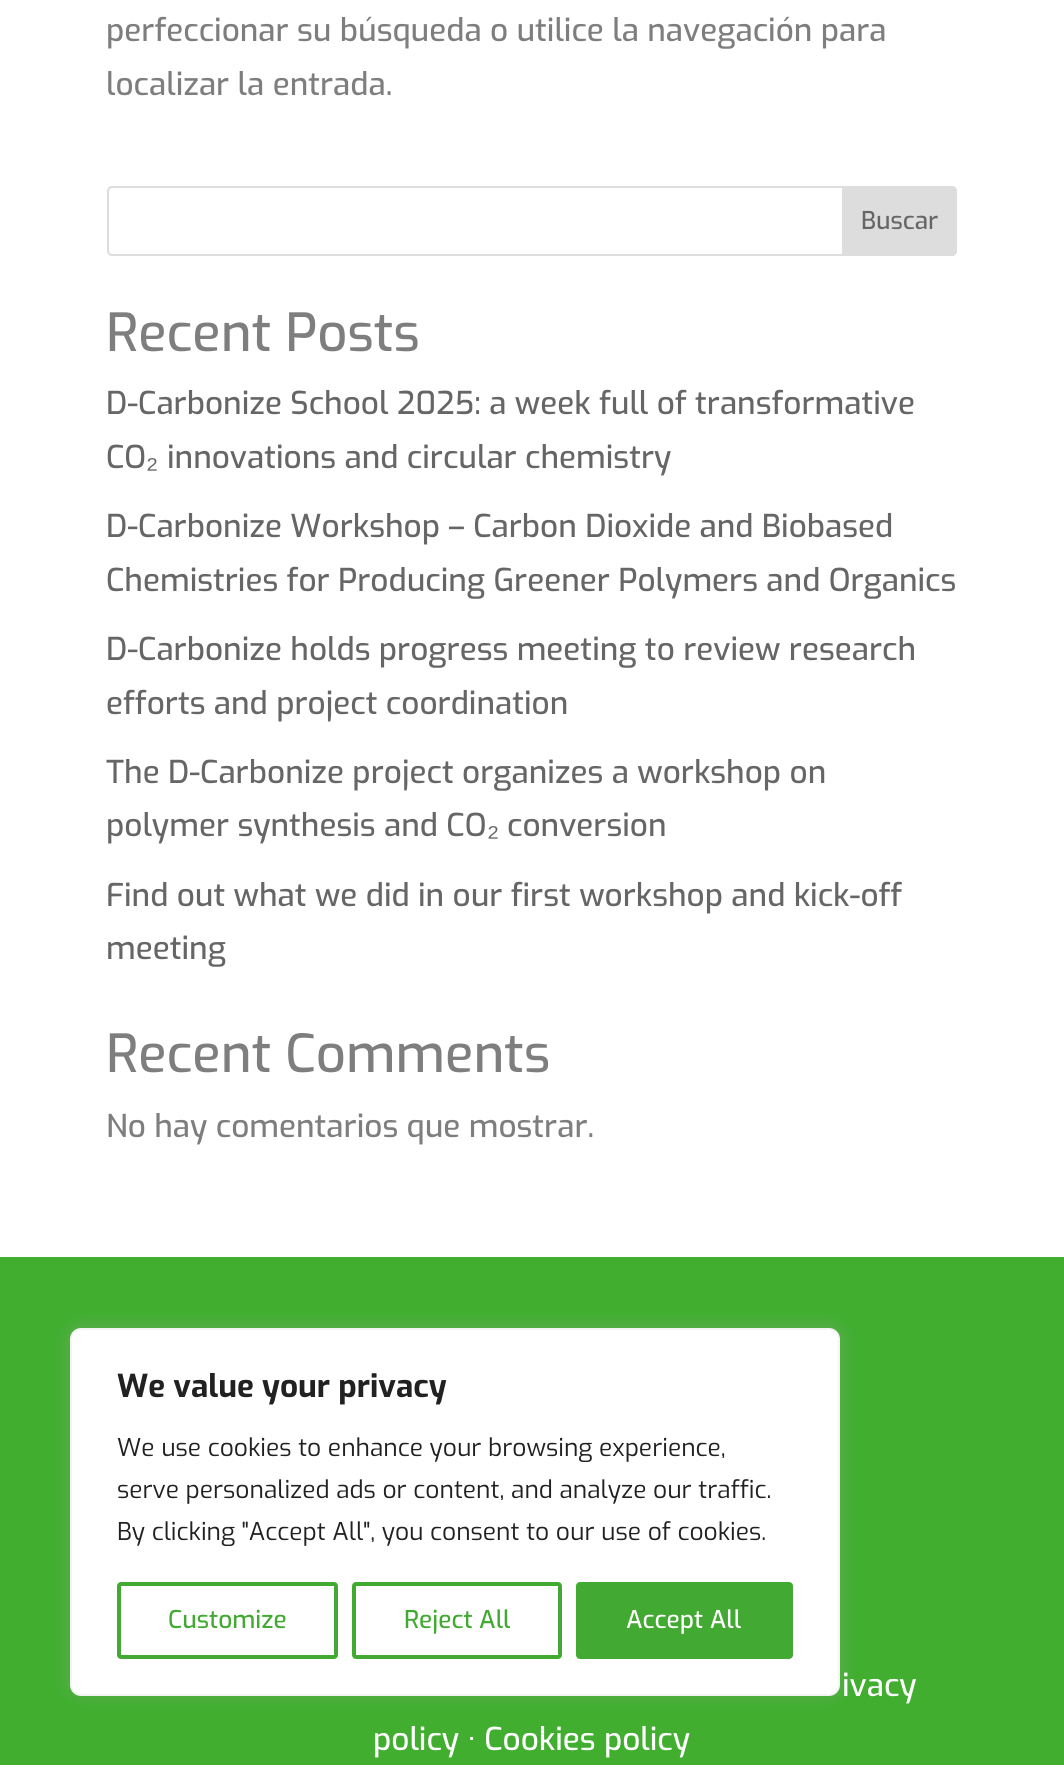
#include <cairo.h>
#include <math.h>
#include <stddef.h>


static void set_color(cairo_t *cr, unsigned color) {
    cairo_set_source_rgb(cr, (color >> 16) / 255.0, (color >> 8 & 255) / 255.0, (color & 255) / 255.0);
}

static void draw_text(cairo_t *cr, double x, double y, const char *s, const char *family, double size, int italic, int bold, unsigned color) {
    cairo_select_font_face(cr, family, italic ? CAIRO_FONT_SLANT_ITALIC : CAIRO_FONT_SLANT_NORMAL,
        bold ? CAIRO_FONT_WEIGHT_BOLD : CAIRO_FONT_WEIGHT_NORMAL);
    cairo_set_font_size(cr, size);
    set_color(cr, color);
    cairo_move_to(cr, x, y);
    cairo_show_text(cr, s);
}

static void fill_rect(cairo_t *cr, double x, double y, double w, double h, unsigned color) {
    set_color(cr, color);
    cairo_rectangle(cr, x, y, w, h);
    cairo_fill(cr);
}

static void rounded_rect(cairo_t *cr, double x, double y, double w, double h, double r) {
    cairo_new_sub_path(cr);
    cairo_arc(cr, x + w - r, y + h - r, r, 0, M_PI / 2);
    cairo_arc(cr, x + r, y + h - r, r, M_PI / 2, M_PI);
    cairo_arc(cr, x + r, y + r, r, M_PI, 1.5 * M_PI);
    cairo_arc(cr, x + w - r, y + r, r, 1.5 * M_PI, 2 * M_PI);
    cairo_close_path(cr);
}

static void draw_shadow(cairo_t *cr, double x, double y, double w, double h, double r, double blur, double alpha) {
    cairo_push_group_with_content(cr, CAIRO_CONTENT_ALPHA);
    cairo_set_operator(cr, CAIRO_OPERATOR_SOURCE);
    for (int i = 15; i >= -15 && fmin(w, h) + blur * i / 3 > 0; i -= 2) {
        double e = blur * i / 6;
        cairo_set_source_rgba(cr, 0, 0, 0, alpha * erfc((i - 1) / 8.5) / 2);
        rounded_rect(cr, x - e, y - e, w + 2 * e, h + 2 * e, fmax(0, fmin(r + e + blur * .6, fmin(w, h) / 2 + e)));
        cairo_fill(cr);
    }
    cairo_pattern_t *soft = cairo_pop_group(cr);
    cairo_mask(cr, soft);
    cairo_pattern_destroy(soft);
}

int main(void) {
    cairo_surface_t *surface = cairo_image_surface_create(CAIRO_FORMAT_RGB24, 1064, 1765);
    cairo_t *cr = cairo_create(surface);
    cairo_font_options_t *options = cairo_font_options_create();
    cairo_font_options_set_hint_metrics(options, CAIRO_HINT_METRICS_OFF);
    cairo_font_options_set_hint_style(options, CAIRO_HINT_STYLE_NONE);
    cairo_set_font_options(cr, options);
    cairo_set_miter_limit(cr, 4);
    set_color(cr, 0xFFFFFF);
    cairo_paint(cr);
    draw_text(cr, 106, 41, "perfeccionar su búsqueda o utilice la navegación para", "Exo Medium", 31.5, 0, 0, 0x7E7E7E);
    draw_text(cr, 106, 95, "localizar la entrada.", "Exo Medium", 31.5, 0, 0, 0x7E7E7E);
    rounded_rect(cr, 108, 187, 848, 68, 4);
    set_color(cr, 0xDDDDDD);
    cairo_stroke(cr);
    cairo_new_path(cr);
    cairo_move_to(cr, 843, 187);
    cairo_line_to(cr, 952, 187);
    cairo_curve_to(cr, 954, 187, 956, 189, 956, 191);
    cairo_line_to(cr, 956, 251);
    cairo_curve_to(cr, 956, 253, 954, 255, 952, 255);
    cairo_line_to(cr, 843, 255);
    cairo_close_path(cr);
    cairo_fill_preserve(cr);
    cairo_stroke(cr);
    draw_text(cr, 861, 229, "Buscar", "Exo Medium", 24.5, 0, 0, 0x666666);
    draw_text(cr, 106, 351, "Recent Posts", "Exo Medium", 52.5, 0, 0, 0x7E7E7E);
    draw_text(cr, 106, 414, "D-Carbonize School 2025: a week full of transformative", "Exo Medium", 31.5, 0, 0, 0x666666);
    draw_text(cr, 106, 468, "CO", "Exo Medium", 31.5, 0, 0, 0x666666);
    draw_text(cr, 146, 468, "₂", "Liberation Sans", 31.5, 0, 0, 0x666666);
    draw_text(cr, 167, 468, "innovations and circular chemistry", "Exo Medium", 31.5, 0, 0, 0x666666);
    draw_text(cr, 106, 537, "D-Carbonize Workshop – Carbon Dioxide and Biobased", "Exo Medium", 31.5, 0, 0, 0x666666);
    draw_text(cr, 106, 591, "Chemistries for Producing Greener Polymers and Organics", "Exo Medium", 31.5, 0, 0, 0x666666);
    draw_text(cr, 106, 660, "D-Carbonize holds progress meeting to review research", "Exo Medium", 31.5, 0, 0, 0x666666);
    draw_text(cr, 106, 714, "efforts and project coordination", "Exo Medium", 31.5, 0, 0, 0x666666);
    draw_text(cr, 106, 783, "The D-Carbonize project organizes a workshop on", "Exo Medium", 31.5, 0, 0, 0x666666);
    draw_text(cr, 106, 836, "polymer synthesis and CO", "Exo Medium", 31.5, 0, 0, 0x666666);
    draw_text(cr, 487, 836, "₂", "Liberation Sans", 31.5, 0, 0, 0x666666);
    draw_text(cr, 507, 836, "conversion", "Exo Medium", 31.5, 0, 0, 0x666666);
    draw_text(cr, 106, 906, "Find out what we did in our first workshop and kick-off", "Exo Medium", 31.5, 0, 0, 0x666666);
    draw_text(cr, 106, 959, "meeting", "Exo Medium", 31.5, 0, 0, 0x666666);
    draw_text(cr, 106, 1072, "Recent Comments", "Exo Medium", 52.5, 0, 0, 0x7E7E7E);
    draw_text(cr, 106, 1137, "No hay comentarios que mostrar.", "Exo Medium", 31.5, 0, 0, 0x7E7E7E);
    fill_rect(cr, 0, 1257, 1064, 508, 0x41AE30);
    draw_text(cr, 842, 1696, "ivacy", "Exo Medium", 31.5, 0, 0, 0xFFFFFF);
    draw_text(cr, 373, 1750, "policy · Cookies policy", "Exo Medium", 31.5, 0, 0, 0xFFFFFF);
    set_color(cr, 0xACABAB);
    draw_shadow(cr, 70, 1327, 770, 367, 11, 9, 0.3);
    set_color(cr, 0xFFFFFF);
    rounded_rect(cr, 71, 1329, 768, 366, 10);
    cairo_fill_preserve(cr);
    set_color(cr, 0xF4F4F4);
    cairo_stroke(cr);
    draw_text(cr, 117, 1397, "We value your privacy", "Exo", 31.5, 0, 1, 0x212121);
    draw_text(cr, 117, 1456, "We use cookies to enhance your browsing experience,", "Exo", 24.5, 0, 0, 0x212121);
    draw_text(cr, 117, 1498, "serve personalized ads or content, and analyze our traffic.", "Exo", 24.5, 0, 0, 0x212121);
    draw_text(cr, 117, 1540, "By clicking \"Accept All\", you consent to our use of cookies.", "Exo", 24.5, 0, 0, 0x212121);
    rounded_rect(cr, 119, 1584, 217, 73, 2);
    set_color(cr, 0x42AA32);
    cairo_set_line_width(cr, 4);
    cairo_stroke(cr);
    draw_text(cr, 168, 1628, "Customize", "Exo Medium", 24.5, 0, 0, 0x42AA32);
    rounded_rect(cr, 354, 1584, 206, 73, 2);
    cairo_stroke(cr);
    draw_text(cr, 404, 1628, "Reject All", "Exo Medium", 24.5, 0, 0, 0x42AA32);
    rounded_rect(cr, 578, 1584, 213, 73, 2);
    cairo_fill_preserve(cr);
    cairo_stroke(cr);
    draw_text(cr, 626, 1628, "Accept All", "Exo Medium", 24.5, 0, 0, 0xFFFFFF);
    cairo_surface_write_to_png(surface, "output.png");
    cairo_font_options_destroy(options);
    cairo_destroy(cr);
    cairo_surface_destroy(surface);
    return 0;
}
